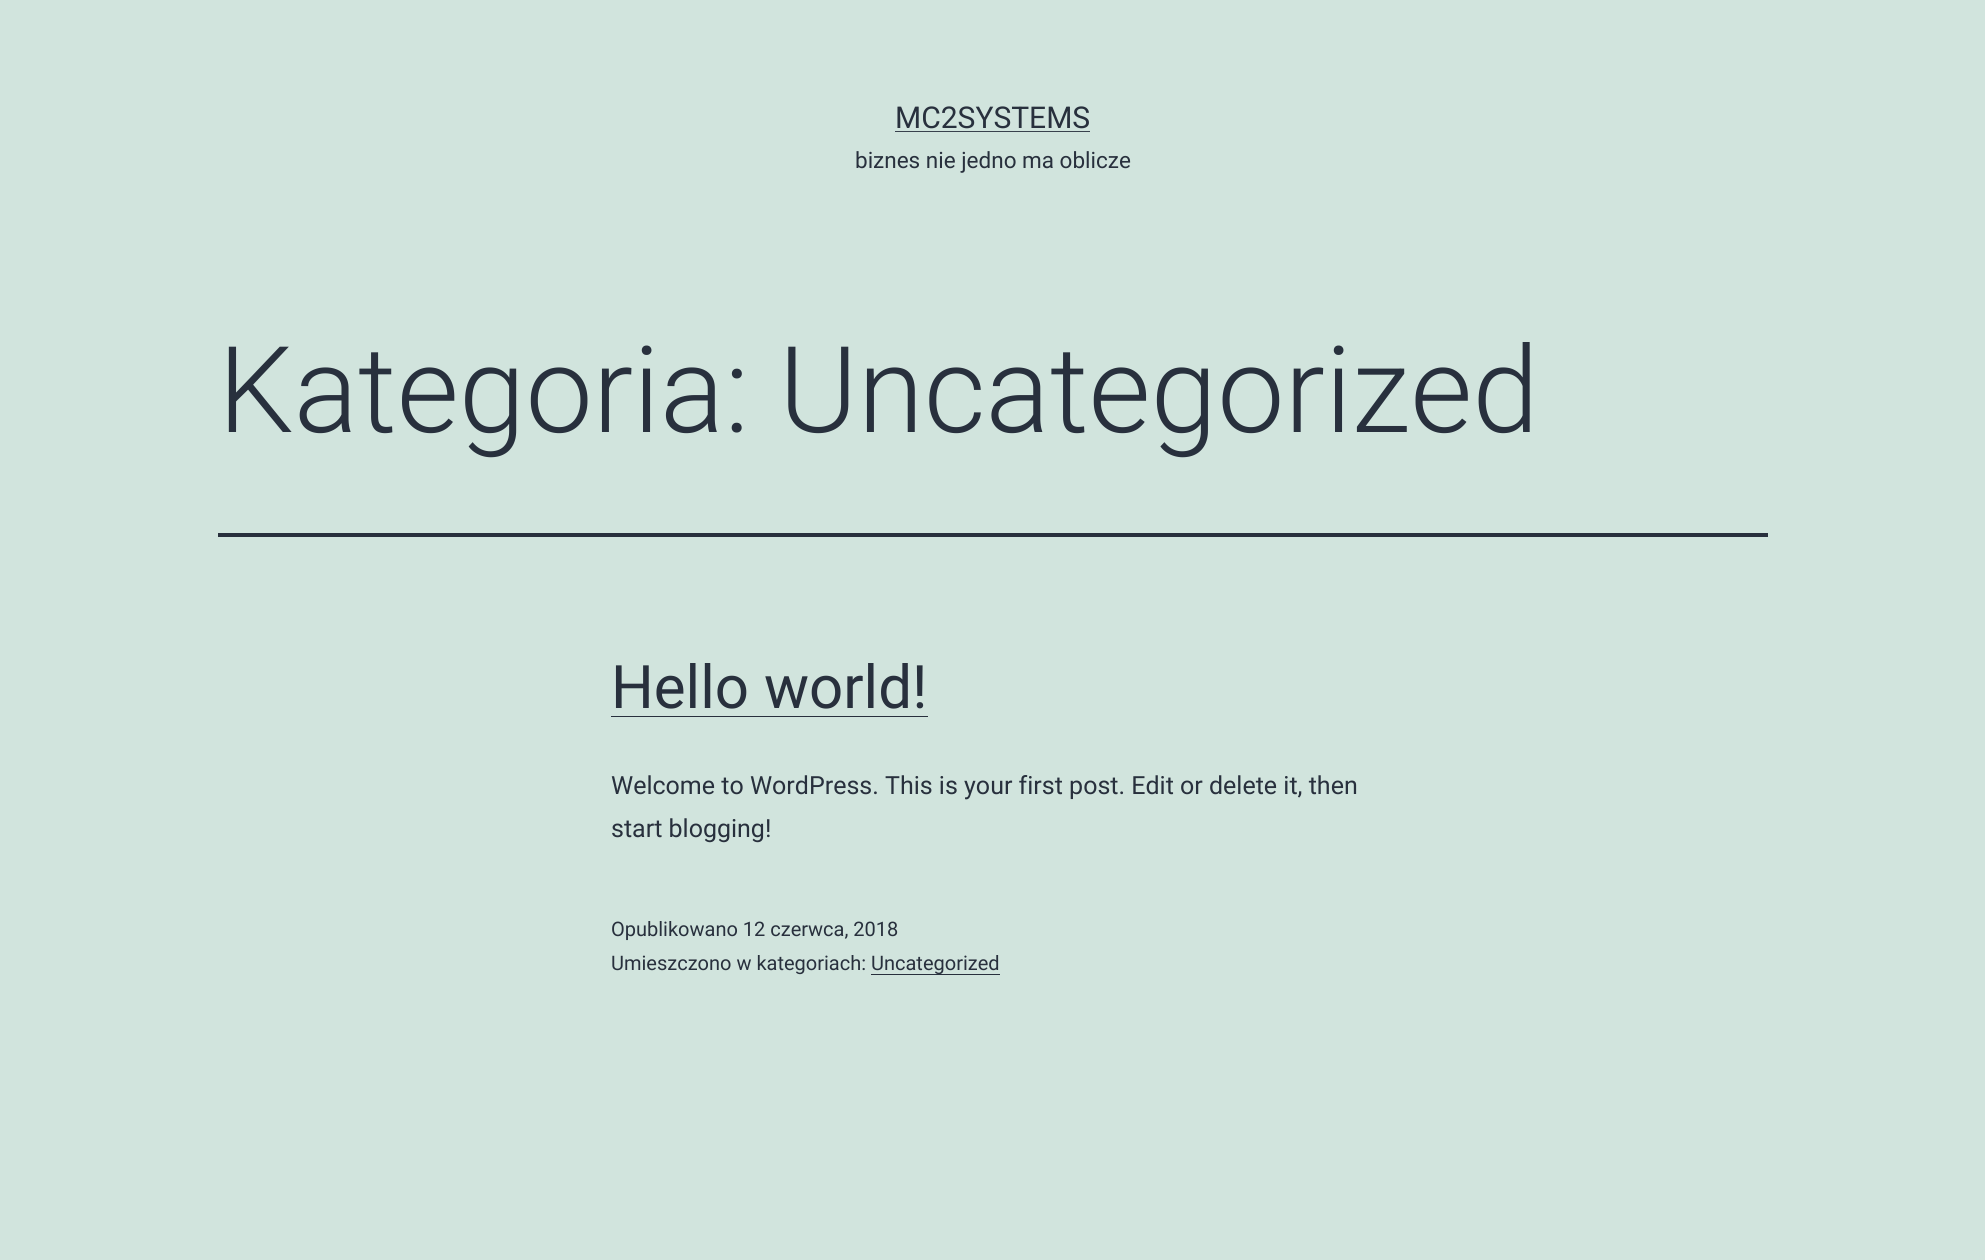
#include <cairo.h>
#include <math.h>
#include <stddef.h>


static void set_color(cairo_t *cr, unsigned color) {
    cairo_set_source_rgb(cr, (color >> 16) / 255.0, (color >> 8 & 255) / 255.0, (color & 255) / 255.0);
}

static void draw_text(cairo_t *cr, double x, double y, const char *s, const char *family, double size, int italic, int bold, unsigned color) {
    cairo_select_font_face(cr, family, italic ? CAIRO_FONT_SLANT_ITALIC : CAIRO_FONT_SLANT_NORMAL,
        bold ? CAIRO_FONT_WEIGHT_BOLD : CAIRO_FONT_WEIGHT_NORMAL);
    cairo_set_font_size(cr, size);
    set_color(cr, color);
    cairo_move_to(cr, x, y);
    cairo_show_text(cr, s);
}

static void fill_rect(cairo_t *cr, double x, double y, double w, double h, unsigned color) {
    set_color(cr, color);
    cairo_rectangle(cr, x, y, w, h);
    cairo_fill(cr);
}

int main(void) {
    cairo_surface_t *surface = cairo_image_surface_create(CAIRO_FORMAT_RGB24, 1985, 1260);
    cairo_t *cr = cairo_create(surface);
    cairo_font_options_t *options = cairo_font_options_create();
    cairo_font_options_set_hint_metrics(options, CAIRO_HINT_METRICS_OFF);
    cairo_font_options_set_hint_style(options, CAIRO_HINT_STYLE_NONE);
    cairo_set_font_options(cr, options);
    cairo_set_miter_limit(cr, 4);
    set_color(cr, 0xD1E4DD);
    cairo_paint(cr);
    draw_text(cr, 895, 128, "MC2SYSTEMS", "Roboto", 30, 0, 0, 0x28303D);
    fill_rect(cr, 895, 131, 195, 1, 0x39414D);
    draw_text(cr, 855, 168, "biznes nie jedno ma oblicze", "Roboto", 22.5, 0, 0, 0x28303D);
    fill_rect(cr, 218, 533, 1550, 4, 0x28303D);
    draw_text(cr, 218, 432, "Kategoria: Uncategorized", "Roboto Light", 120, 0, 0, 0x28303D);
    draw_text(cr, 611, 708, "Hello world!", "Roboto", 60, 0, 0, 0x28303D);
    fill_rect(cr, 611, 716, 317, 1, 0x28303D);
    draw_text(cr, 611, 794, "Welcome to WordPress. This is your first post. Edit or delete it, then", "Roboto", 25, 0, 0, 0x28303D);
    draw_text(cr, 611, 837, "start blogging!", "Roboto", 25, 0, 0, 0x28303D);
    draw_text(cr, 611, 936, "Opublikowano 12 czerwca, 2018", "Roboto", 20, 0, 0, 0x28303D);
    draw_text(cr, 611, 970, "Umieszczono w kategoriach:", "Roboto", 20, 0, 0, 0x28303D);
    fill_rect(cr, 871, 974, 129, 1, 0x28303D);
    draw_text(cr, 871, 970, "Uncategorized", "Roboto", 20, 0, 0, 0x28303D);
    cairo_surface_write_to_png(surface, "output.png");
    cairo_font_options_destroy(options);
    cairo_destroy(cr);
    cairo_surface_destroy(surface);
    return 0;
}
